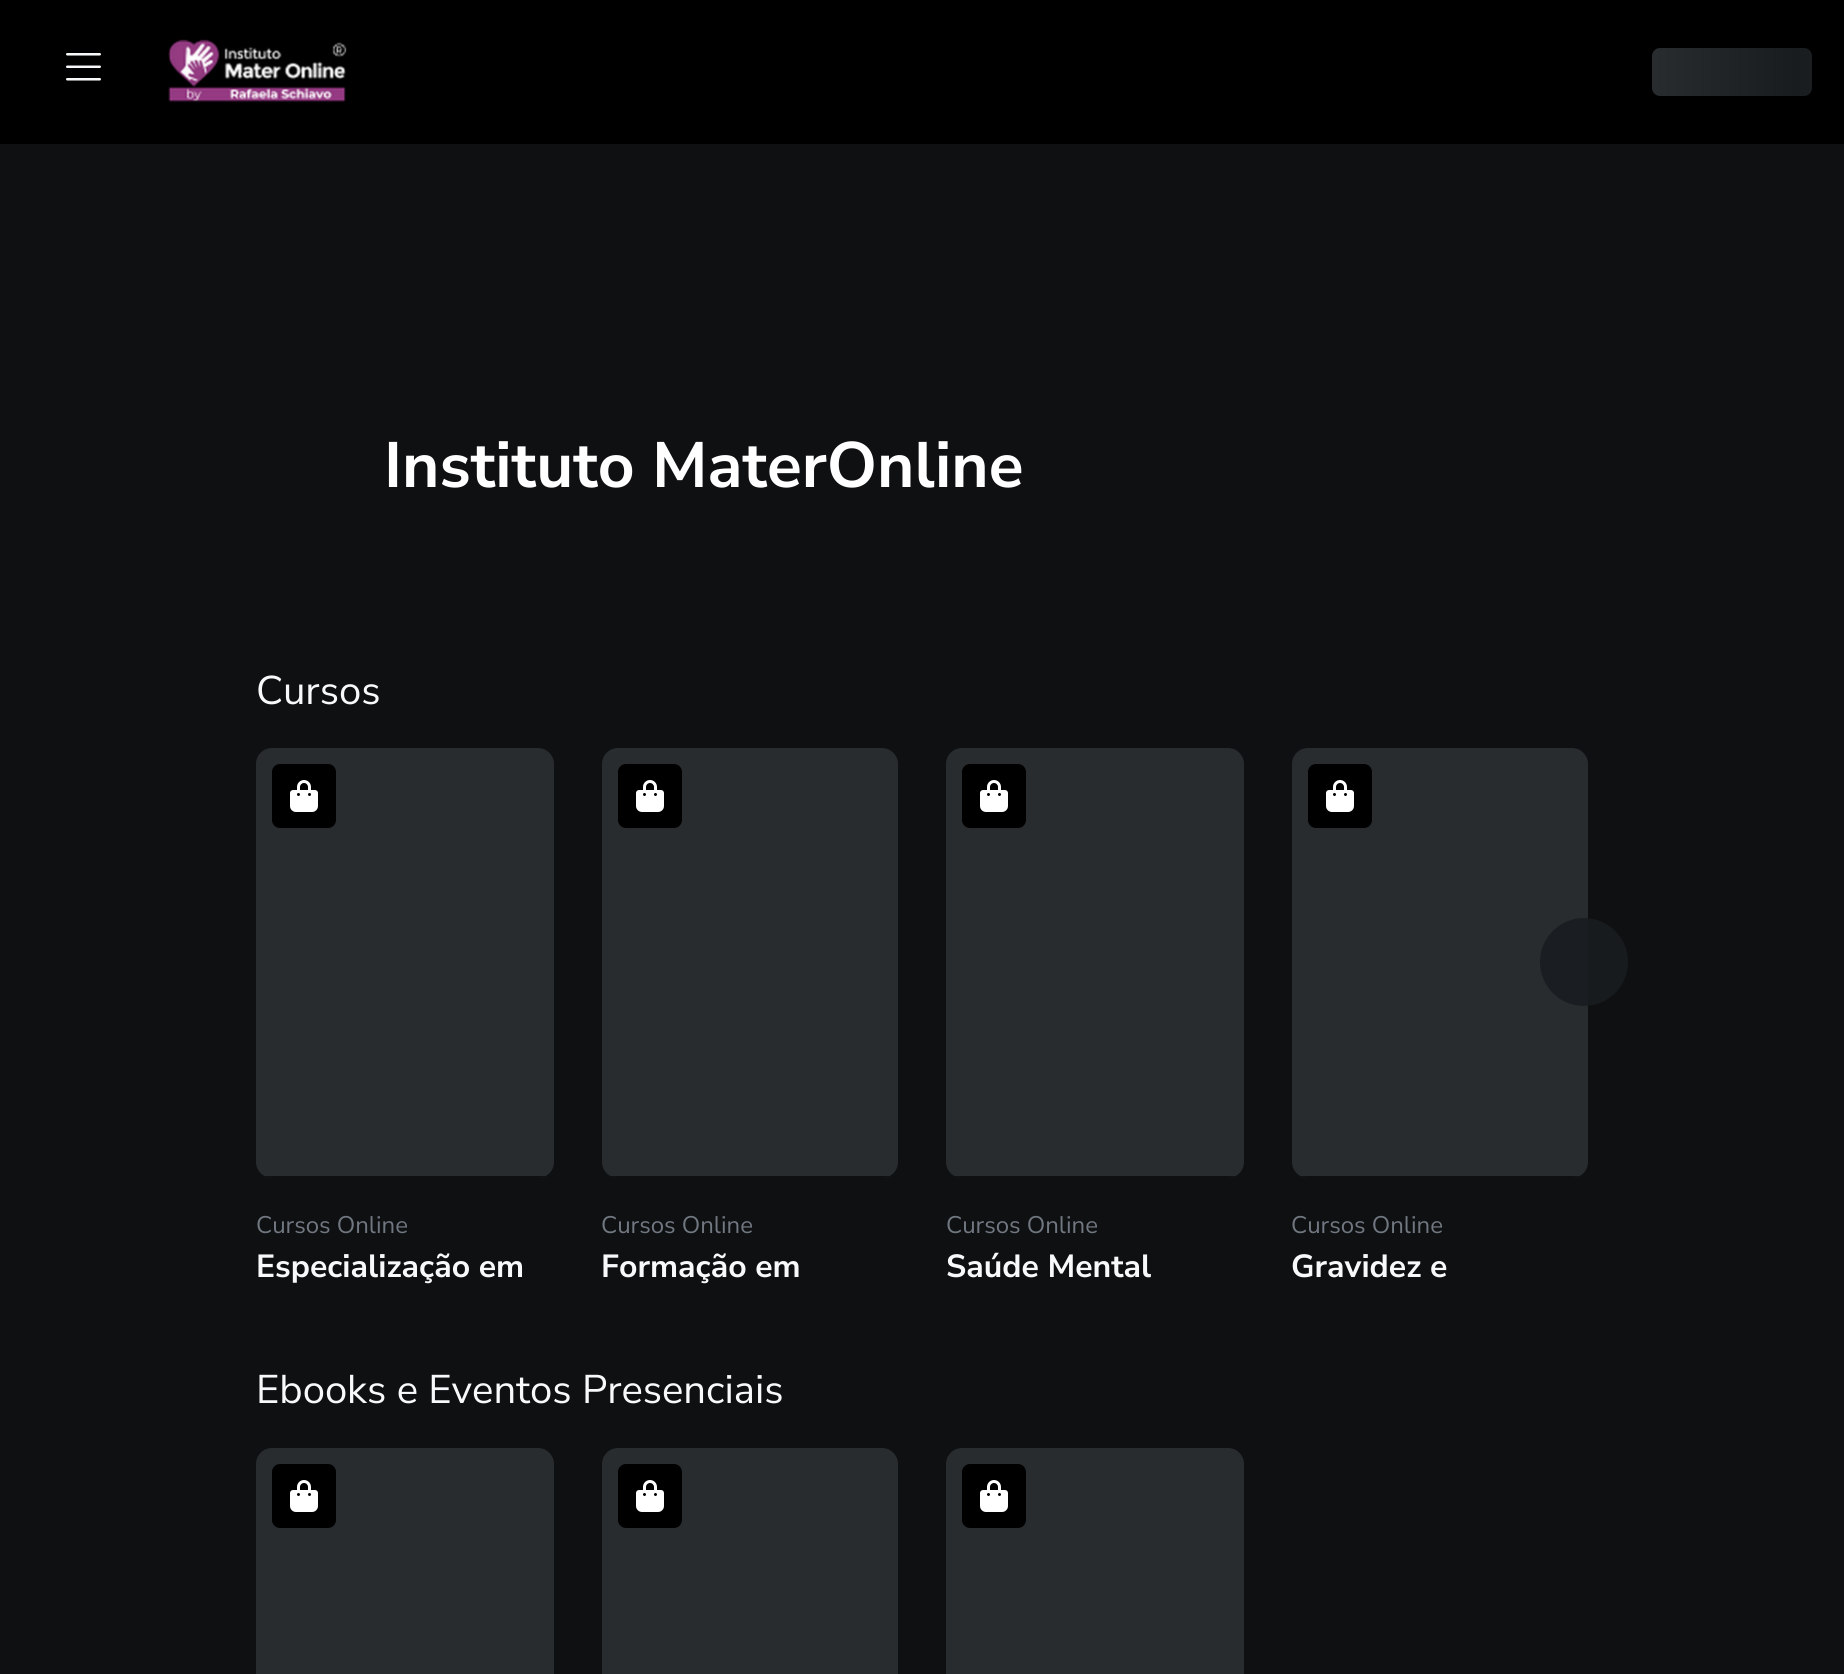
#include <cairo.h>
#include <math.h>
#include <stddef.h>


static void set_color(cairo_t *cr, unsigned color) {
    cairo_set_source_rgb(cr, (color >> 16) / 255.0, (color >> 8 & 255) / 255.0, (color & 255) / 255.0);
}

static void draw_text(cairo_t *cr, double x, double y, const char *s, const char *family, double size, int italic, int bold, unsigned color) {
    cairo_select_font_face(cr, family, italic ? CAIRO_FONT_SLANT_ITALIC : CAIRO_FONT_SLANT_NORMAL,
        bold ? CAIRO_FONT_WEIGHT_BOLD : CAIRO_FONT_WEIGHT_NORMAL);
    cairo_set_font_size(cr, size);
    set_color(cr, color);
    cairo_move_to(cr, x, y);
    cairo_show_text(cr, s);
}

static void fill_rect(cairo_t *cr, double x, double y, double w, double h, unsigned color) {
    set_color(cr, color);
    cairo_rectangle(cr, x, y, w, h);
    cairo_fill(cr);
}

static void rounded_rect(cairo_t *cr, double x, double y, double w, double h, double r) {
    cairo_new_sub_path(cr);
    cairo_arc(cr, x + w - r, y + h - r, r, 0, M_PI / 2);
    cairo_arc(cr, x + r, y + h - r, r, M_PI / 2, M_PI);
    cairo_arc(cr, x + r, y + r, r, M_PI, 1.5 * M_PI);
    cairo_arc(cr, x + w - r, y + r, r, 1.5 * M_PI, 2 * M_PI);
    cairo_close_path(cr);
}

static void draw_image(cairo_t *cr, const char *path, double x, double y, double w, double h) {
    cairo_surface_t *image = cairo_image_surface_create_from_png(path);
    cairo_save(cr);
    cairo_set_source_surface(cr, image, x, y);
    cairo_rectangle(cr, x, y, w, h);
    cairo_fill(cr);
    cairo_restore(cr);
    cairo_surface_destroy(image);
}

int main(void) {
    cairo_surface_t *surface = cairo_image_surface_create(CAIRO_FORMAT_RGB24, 1844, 1674);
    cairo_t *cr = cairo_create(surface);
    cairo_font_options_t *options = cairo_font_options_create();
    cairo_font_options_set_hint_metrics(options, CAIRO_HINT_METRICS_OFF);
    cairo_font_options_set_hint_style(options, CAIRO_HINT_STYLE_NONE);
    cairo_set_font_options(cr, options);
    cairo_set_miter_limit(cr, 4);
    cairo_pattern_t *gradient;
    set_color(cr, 0x0E1012);
    cairo_paint(cr);
    fill_rect(cr, 0, 0, 1844, 144, 0x000000);
    draw_image(cr, "assets/img1.png", 66, 53, 35, 28);
    draw_image(cr, "assets/img2.png", 168, 39, 179, 64);
    gradient = cairo_pattern_create_linear(1652, 72, 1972, 72);
    cairo_pattern_add_color_stop_rgba(gradient, 0, 0.157, 0.173, 0.184, 1);
    cairo_pattern_add_color_stop_rgba(gradient, 0.45, 0.098, 0.11, 0.122, 1);
    cairo_pattern_add_color_stop_rgba(gradient, 0.9, 0.157, 0.173, 0.184, 1);
    cairo_set_source(cr, gradient);
    cairo_pattern_destroy(gradient);
    rounded_rect(cr, 1652, 48, 160, 48, 8);
    cairo_fill(cr);
    draw_text(cr, 384, 487, "Instituto MaterOnline", "Nunito Sans", 64, 0, 1, 0xFFFFFF);
    draw_text(cr, 256, 704, "Cursos", "Nunito Sans", 40, 0, 0, 0xF7F9FA);
    set_color(cr, 0x282C2F);
    rounded_rect(cr, 1292, 748, 296, 430, 16);
    cairo_fill(cr);
    cairo_set_source_rgba(cr, 0.098, 0.11, 0.122, 0.9);
    cairo_arc(cr, 1584, 962, 44, 0, 2 * M_PI);
    cairo_fill(cr);
    set_color(cr, 0x282C2F);
    rounded_rect(cr, 256, 748, 298, 430, 16);
    cairo_fill(cr);
    set_color(cr, 0x000000);
    rounded_rect(cr, 272, 764, 64, 64, 8);
    cairo_fill(cr);
    draw_image(cr, "assets/img3.png", 290, 780, 28, 32);
    cairo_save(cr);
    rounded_rect(cr, 256, 748, 298, 430, 16);
    cairo_clip(cr);
    fill_rect(cr, 256, 1176, 298, 2, 0x0E1012);
    cairo_restore(cr);
    draw_text(cr, 256, 1233, "Cursos Online", "Nunito Sans", 24, 0, 0, 0x707780);
    draw_text(cr, 256, 1277, "Especialização em", "Nunito Sans", 32, 0, 1, 0xF7F9FA);
    set_color(cr, 0x282C2F);
    rounded_rect(cr, 602, 748, 296, 430, 16);
    cairo_fill(cr);
    set_color(cr, 0x000000);
    rounded_rect(cr, 618, 764, 64, 64, 8);
    cairo_fill(cr);
    draw_image(cr, "assets/img3.png", 636, 780, 28, 32);
    cairo_save(cr);
    rounded_rect(cr, 602, 748, 296, 430, 16);
    cairo_clip(cr);
    fill_rect(cr, 602, 1176, 296, 2, 0x0E1012);
    cairo_restore(cr);
    draw_text(cr, 601, 1233, "Cursos Online", "Nunito Sans", 24, 0, 0, 0x707780);
    draw_text(cr, 601, 1277, "Formação em", "Nunito Sans", 32, 0, 1, 0xF7F9FA);
    set_color(cr, 0x282C2F);
    rounded_rect(cr, 946, 748, 298, 430, 16);
    cairo_fill(cr);
    set_color(cr, 0x000000);
    rounded_rect(cr, 962, 764, 64, 64, 8);
    cairo_fill(cr);
    draw_image(cr, "assets/img3.png", 980, 780, 28, 32);
    cairo_save(cr);
    rounded_rect(cr, 946, 748, 298, 430, 16);
    cairo_clip(cr);
    fill_rect(cr, 946, 1176, 298, 2, 0x0E1012);
    cairo_restore(cr);
    draw_text(cr, 946, 1233, "Cursos Online", "Nunito Sans", 24, 0, 0, 0x707780);
    draw_text(cr, 946, 1277, "Saúde Mental", "Nunito Sans", 32, 0, 1, 0xF7F9FA);
    set_color(cr, 0x000000);
    rounded_rect(cr, 1308, 764, 64, 64, 8);
    cairo_fill(cr);
    draw_image(cr, "assets/img3.png", 1326, 780, 28, 32);
    cairo_save(cr);
    rounded_rect(cr, 1292, 748, 296, 430, 16);
    cairo_clip(cr);
    fill_rect(cr, 1292, 1176, 296, 2, 0x0E1012);
    cairo_restore(cr);
    draw_text(cr, 1291, 1233, "Cursos Online", "Nunito Sans", 24, 0, 0, 0x707780);
    draw_text(cr, 1291, 1277, "Gravidez e", "Nunito Sans", 32, 0, 1, 0xF7F9FA);
    draw_text(cr, 256, 1403, "Ebooks e Eventos Presenciais", "Nunito Sans", 40, 0, 0, 0xF7F9FA);
    set_color(cr, 0x282C2F);
    rounded_rect(cr, 256, 1448, 298, 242, 16);
    cairo_fill(cr);
    set_color(cr, 0x000000);
    rounded_rect(cr, 272, 1464, 64, 64, 8);
    cairo_fill(cr);
    draw_image(cr, "assets/img3.png", 290, 1480, 28, 32);
    set_color(cr, 0x282C2F);
    rounded_rect(cr, 602, 1448, 296, 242, 16);
    cairo_fill(cr);
    set_color(cr, 0x000000);
    rounded_rect(cr, 618, 1464, 64, 64, 8);
    cairo_fill(cr);
    draw_image(cr, "assets/img3.png", 636, 1480, 28, 32);
    set_color(cr, 0x282C2F);
    rounded_rect(cr, 946, 1448, 298, 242, 16);
    cairo_fill(cr);
    set_color(cr, 0x000000);
    rounded_rect(cr, 962, 1464, 64, 64, 8);
    cairo_fill(cr);
    draw_image(cr, "assets/img3.png", 980, 1480, 28, 32);
    cairo_surface_write_to_png(surface, "output.png");
    cairo_font_options_destroy(options);
    cairo_destroy(cr);
    cairo_surface_destroy(surface);
    return 0;
}
